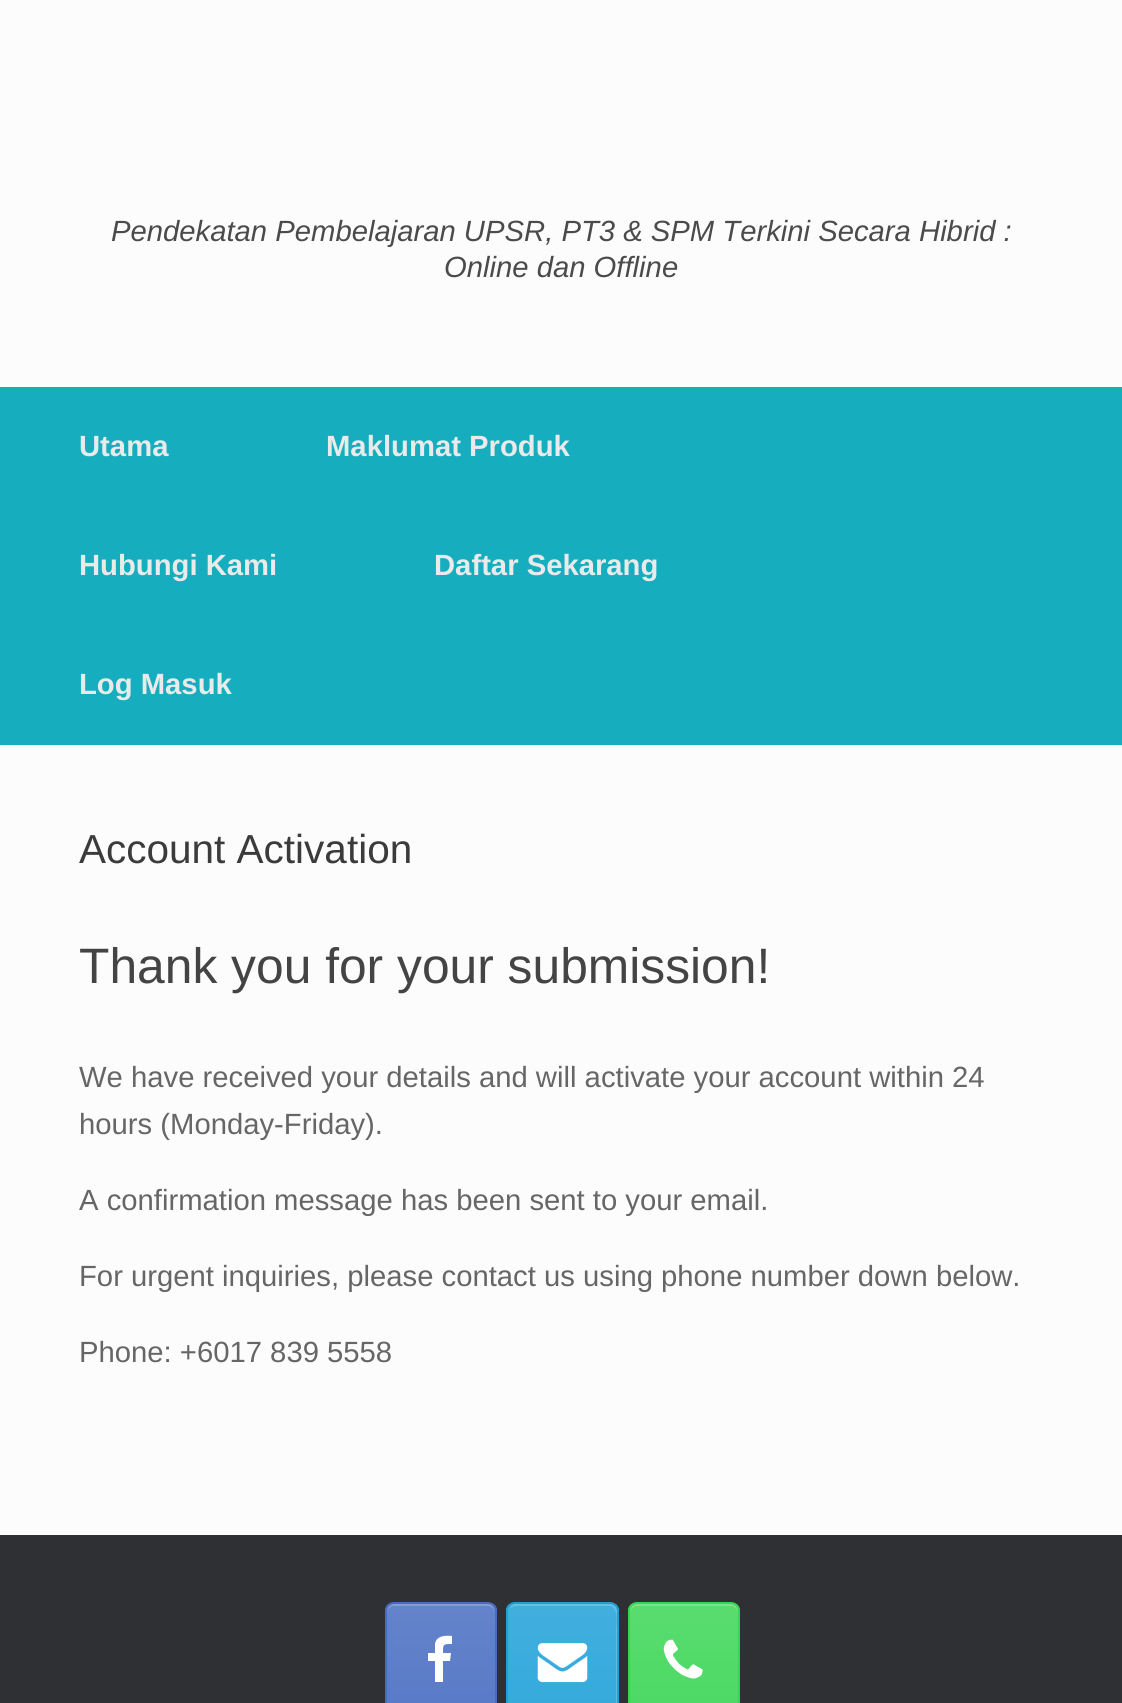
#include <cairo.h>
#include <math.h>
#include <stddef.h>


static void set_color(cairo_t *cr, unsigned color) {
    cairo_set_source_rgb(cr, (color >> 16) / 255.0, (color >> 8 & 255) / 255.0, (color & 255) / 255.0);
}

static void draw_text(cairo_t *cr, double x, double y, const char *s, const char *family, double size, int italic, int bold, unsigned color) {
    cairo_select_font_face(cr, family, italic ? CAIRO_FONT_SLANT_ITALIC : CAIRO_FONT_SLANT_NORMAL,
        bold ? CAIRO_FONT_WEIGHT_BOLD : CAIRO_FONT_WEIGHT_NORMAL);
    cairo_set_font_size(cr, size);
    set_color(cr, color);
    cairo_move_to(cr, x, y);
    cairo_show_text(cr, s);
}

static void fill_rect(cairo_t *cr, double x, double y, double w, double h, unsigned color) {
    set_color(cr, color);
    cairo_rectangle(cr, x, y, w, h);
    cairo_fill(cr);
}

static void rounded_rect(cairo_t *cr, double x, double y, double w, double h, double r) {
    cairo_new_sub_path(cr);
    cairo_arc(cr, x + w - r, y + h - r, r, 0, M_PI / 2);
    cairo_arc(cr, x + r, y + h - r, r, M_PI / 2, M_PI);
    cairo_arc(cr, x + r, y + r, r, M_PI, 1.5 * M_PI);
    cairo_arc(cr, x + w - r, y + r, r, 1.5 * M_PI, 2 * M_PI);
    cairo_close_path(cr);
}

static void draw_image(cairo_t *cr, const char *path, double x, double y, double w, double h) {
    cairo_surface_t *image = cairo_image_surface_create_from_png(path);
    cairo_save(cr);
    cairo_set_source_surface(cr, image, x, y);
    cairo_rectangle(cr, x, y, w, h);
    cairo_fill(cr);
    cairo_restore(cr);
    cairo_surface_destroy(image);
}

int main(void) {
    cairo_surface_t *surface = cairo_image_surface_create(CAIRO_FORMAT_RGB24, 1122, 1703);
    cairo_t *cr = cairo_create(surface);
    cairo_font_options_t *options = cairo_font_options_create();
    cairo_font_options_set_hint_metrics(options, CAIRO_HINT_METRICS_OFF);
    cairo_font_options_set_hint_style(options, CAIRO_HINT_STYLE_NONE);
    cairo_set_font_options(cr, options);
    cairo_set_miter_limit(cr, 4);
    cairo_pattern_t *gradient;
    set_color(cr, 0x2F3033);
    cairo_paint(cr);
    fill_rect(cr, 0, 0, 1122, 387, 0xFCFCFC);
    draw_text(cr, 111, 241, "Pendekatan Pembelajaran UPSR, PT3 & SPM Terkini Secara Hibrid :", "Liberation Sans", 29.25, 1, 0, 0x4B4B4B);
    draw_text(cr, 444, 277, "Online dan Offline", "Liberation Sans", 29.25, 1, 0, 0x4B4B4B);
    fill_rect(cr, 0, 387, 1122, 358, 0x16AEBF);
    draw_text(cr, 79, 456, "Utama", "Liberation Sans", 29.25, 0, 1, 0xEAEAEA);
    draw_text(cr, 326, 456, "Maklumat Produk", "Liberation Sans", 29.25, 0, 1, 0xEAEAEA);
    draw_text(cr, 79, 575, "Hubungi Kami", "Liberation Sans", 29.25, 0, 1, 0xEAEAEA);
    draw_text(cr, 434, 575, "Daftar Sekarang", "Liberation Sans", 29.25, 0, 1, 0xEAEAEA);
    draw_text(cr, 79, 694, "Log Masuk", "Liberation Sans", 29.25, 0, 1, 0xEAEAEA);
    fill_rect(cr, 0, 745, 1122, 790, 0xFCFCFC);
    draw_text(cr, 79, 863, "Account Activation", "Liberation Sans", 40.5, 0, 0, 0x3B3B3B);
    draw_text(cr, 79, 983, "Thank you for your submission!", "Liberation Sans", 49.75, 0, 0, 0x444444);
    draw_text(cr, 79, 1087, "We have received your details and will activate your account within 24", "Liberation Sans", 29.25, 0, 0, 0x666666);
    draw_text(cr, 79, 1134, "hours (Monday-Friday).", "Liberation Sans", 29.25, 0, 0, 0x666666);
    draw_text(cr, 79, 1210, "A confirmation message has been sent to your email.", "Liberation Sans", 29.25, 0, 0, 0x666666);
    draw_text(cr, 79, 1286, "For urgent inquiries, please contact us using phone number down below.", "Liberation Sans", 29.25, 0, 0, 0x666666);
    draw_text(cr, 79, 1362, "Phone: +6017 839 5558", "Liberation Sans", 29.25, 0, 0, 0x666666);
    cairo_save(cr);
    rounded_rect(cr, 385, 1602, 112, 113, 9);
    cairo_clip(cr);
    gradient = cairo_pattern_create_linear(387, 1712, 387, 1604);
    cairo_pattern_add_color_stop_rgba(gradient, 0, 0.349, 0.478, 0.78, 1);
    cairo_pattern_add_color_stop_rgba(gradient, 1, 0.392, 0.514, 0.796, 1);
    cairo_set_source(cr, gradient);
    cairo_pattern_destroy(gradient);
    cairo_rectangle(cr, 385, 1604, 112, 99);
    cairo_fill(cr);
    cairo_restore(cr);
    cairo_set_source_rgba(cr, 1, 1, 1, 0.2);
    cairo_new_path(cr);
    cairo_move_to(cr, 394, 1606);
    cairo_line_to(cr, 488, 1606);
    cairo_curve_to(cr, 492, 1606, 495, 1610, 495, 1613);
    cairo_curve_to(cr, 495, 1600, 482, 1604, 472, 1604);
    cairo_line_to(cr, 410, 1604);
    cairo_curve_to(cr, 400, 1604, 387, 1600, 387, 1613);
    cairo_curve_to(cr, 387, 1610, 390, 1606, 394, 1606);
    cairo_close_path(cr);
    cairo_fill(cr);
    rounded_rect(cr, 386, 1603, 110, 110, 8);
    set_color(cr, 0x466BC1);
    cairo_stroke(cr);
    set_color(cr, 0xFFFFFF);
    cairo_new_path(cr);
    cairo_move_to(cr, 452, 1636);
    cairo_curve_to(cr, 445, 1635, 436, 1636, 435, 1644);
    cairo_line_to(cr, 435, 1653);
    cairo_line_to(cr, 428, 1653);
    cairo_line_to(cr, 428, 1661);
    cairo_line_to(cr, 435, 1661);
    cairo_line_to(cr, 435, 1682);
    cairo_line_to(cr, 443, 1682);
    cairo_line_to(cr, 443, 1661);
    cairo_line_to(cr, 450, 1661);
    cairo_line_to(cr, 451, 1653);
    cairo_line_to(cr, 443, 1653);
    cairo_curve_to(cr, 443, 1644, 443, 1644, 452, 1644);
    cairo_close_path(cr);
    cairo_fill(cr);
    cairo_save(cr);
    rounded_rect(cr, 506, 1602, 113, 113, 9);
    cairo_clip(cr);
    gradient = cairo_pattern_create_linear(509, 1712, 509, 1604);
    cairo_pattern_add_color_stop_rgba(gradient, 0, 0.204, 0.667, 0.863, 1);
    cairo_pattern_add_color_stop_rgba(gradient, 1, 0.255, 0.686, 0.871, 1);
    cairo_set_source(cr, gradient);
    cairo_pattern_destroy(gradient);
    cairo_rectangle(cr, 506, 1604, 113, 99);
    cairo_fill(cr);
    cairo_restore(cr);
    cairo_set_source_rgba(cr, 1, 1, 1, 0.2);
    cairo_new_path(cr);
    cairo_move_to(cr, 515, 1606);
    cairo_line_to(cr, 611, 1606);
    cairo_curve_to(cr, 619, 1609, 616, 1626, 616, 1629);
    cairo_line_to(cr, 616, 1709);
    cairo_curve_to(cr, 617, 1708, 617, 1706, 617, 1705);
    cairo_line_to(cr, 617, 1611);
    cairo_curve_to(cr, 617, 1607, 614, 1604, 610, 1604);
    cairo_line_to(cr, 516, 1604);
    cairo_curve_to(cr, 512, 1604, 510, 1607, 509, 1610);
    cairo_curve_to(cr, 510, 1608, 513, 1606, 515, 1606);
    cairo_close_path(cr);
    cairo_fill(cr);
    rounded_rect(cr, 507, 1603, 111, 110, 8);
    set_color(cr, 0x249ED2);
    cairo_stroke(cr);
    draw_image(cr, "assets/img1.png", 537, 1643, 51, 40);
    cairo_save(cr);
    rounded_rect(cr, 628, 1602, 112, 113, 9);
    cairo_clip(cr);
    gradient = cairo_pattern_create_linear(630, 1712, 630, 1604);
    cairo_pattern_add_color_stop_rgba(gradient, 0, 0.298, 0.851, 0.392, 1);
    cairo_pattern_add_color_stop_rgba(gradient, 1, 0.349, 0.863, 0.435, 1);
    cairo_set_source(cr, gradient);
    cairo_pattern_destroy(gradient);
    cairo_rectangle(cr, 628, 1604, 112, 99);
    cairo_fill(cr);
    cairo_restore(cr);
    cairo_set_source_rgba(cr, 1, 1, 1, 0.2);
    cairo_new_path(cr);
    cairo_move_to(cr, 637, 1606);
    cairo_line_to(cr, 731, 1606);
    cairo_curve_to(cr, 735, 1606, 738, 1610, 738, 1613);
    cairo_curve_to(cr, 738, 1600, 725, 1604, 715, 1604);
    cairo_line_to(cr, 653, 1604);
    cairo_curve_to(cr, 643, 1604, 630, 1600, 630, 1613);
    cairo_curve_to(cr, 630, 1610, 633, 1606, 637, 1606);
    cairo_close_path(cr);
    cairo_fill(cr);
    rounded_rect(cr, 629, 1603, 110, 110, 8);
    set_color(cr, 0x37D552);
    cairo_stroke(cr);
    draw_image(cr, "assets/img2.png", 663, 1639, 40, 40);
    cairo_surface_write_to_png(surface, "output.png");
    cairo_font_options_destroy(options);
    cairo_destroy(cr);
    cairo_surface_destroy(surface);
    return 0;
}
